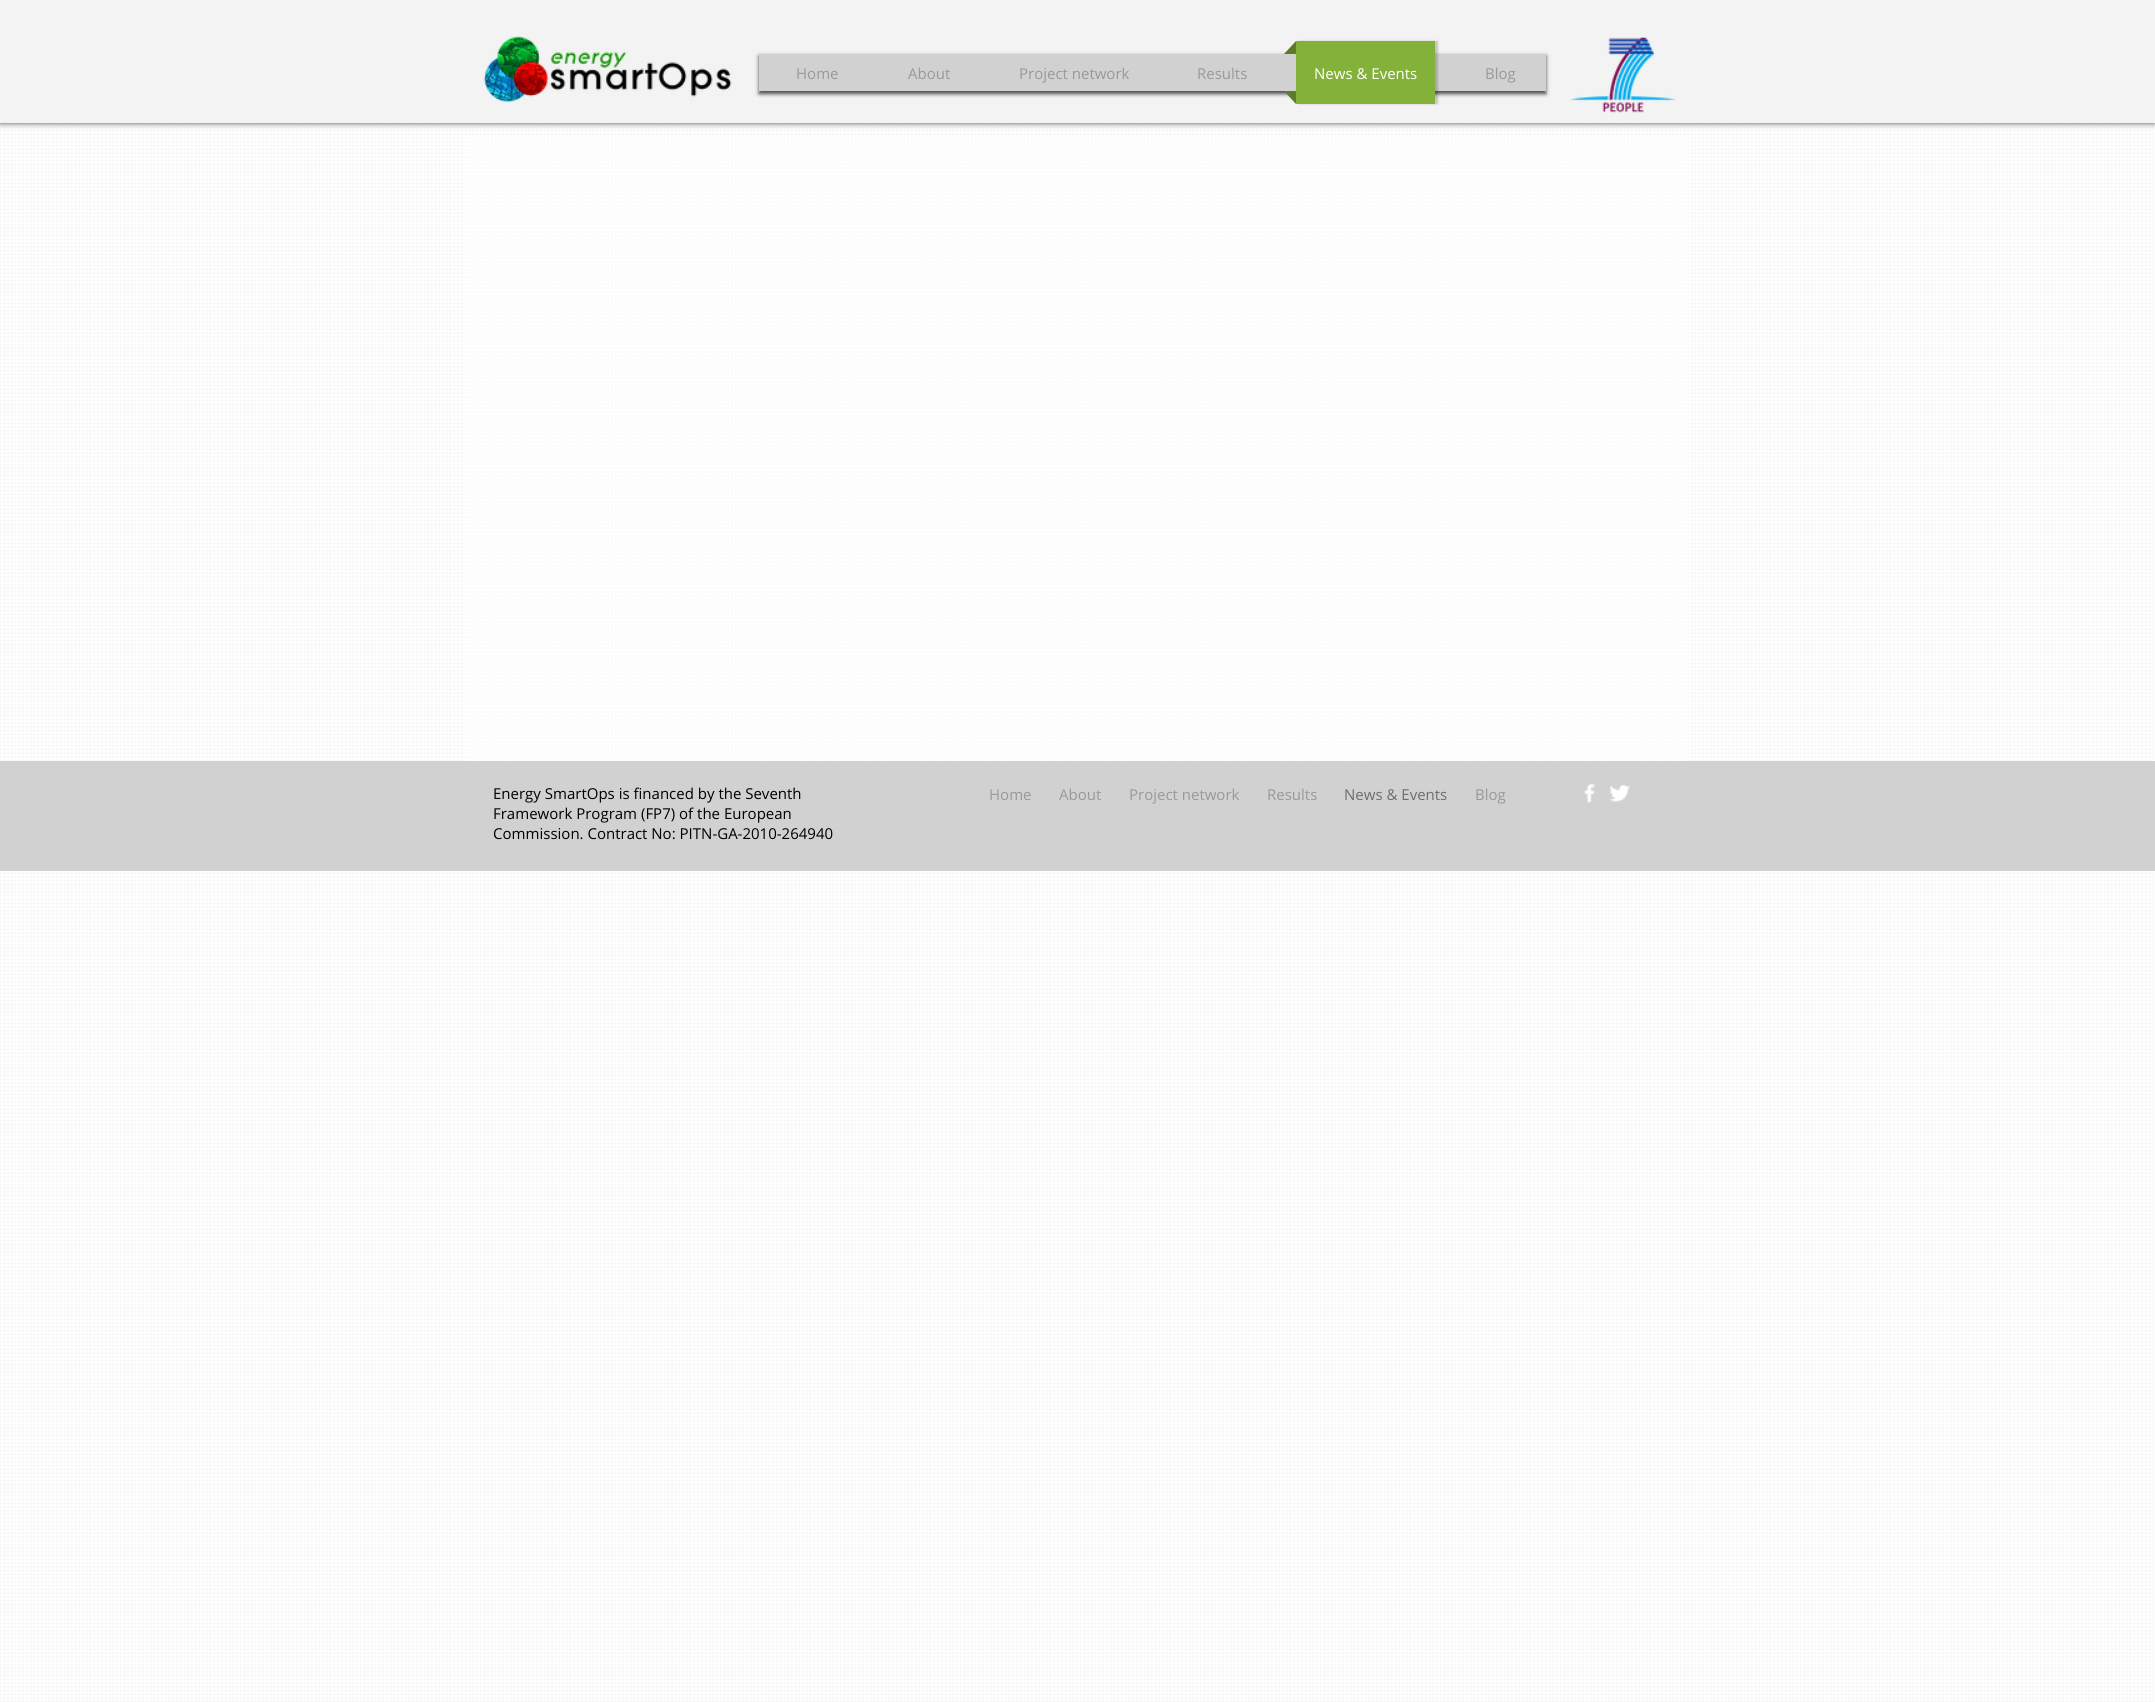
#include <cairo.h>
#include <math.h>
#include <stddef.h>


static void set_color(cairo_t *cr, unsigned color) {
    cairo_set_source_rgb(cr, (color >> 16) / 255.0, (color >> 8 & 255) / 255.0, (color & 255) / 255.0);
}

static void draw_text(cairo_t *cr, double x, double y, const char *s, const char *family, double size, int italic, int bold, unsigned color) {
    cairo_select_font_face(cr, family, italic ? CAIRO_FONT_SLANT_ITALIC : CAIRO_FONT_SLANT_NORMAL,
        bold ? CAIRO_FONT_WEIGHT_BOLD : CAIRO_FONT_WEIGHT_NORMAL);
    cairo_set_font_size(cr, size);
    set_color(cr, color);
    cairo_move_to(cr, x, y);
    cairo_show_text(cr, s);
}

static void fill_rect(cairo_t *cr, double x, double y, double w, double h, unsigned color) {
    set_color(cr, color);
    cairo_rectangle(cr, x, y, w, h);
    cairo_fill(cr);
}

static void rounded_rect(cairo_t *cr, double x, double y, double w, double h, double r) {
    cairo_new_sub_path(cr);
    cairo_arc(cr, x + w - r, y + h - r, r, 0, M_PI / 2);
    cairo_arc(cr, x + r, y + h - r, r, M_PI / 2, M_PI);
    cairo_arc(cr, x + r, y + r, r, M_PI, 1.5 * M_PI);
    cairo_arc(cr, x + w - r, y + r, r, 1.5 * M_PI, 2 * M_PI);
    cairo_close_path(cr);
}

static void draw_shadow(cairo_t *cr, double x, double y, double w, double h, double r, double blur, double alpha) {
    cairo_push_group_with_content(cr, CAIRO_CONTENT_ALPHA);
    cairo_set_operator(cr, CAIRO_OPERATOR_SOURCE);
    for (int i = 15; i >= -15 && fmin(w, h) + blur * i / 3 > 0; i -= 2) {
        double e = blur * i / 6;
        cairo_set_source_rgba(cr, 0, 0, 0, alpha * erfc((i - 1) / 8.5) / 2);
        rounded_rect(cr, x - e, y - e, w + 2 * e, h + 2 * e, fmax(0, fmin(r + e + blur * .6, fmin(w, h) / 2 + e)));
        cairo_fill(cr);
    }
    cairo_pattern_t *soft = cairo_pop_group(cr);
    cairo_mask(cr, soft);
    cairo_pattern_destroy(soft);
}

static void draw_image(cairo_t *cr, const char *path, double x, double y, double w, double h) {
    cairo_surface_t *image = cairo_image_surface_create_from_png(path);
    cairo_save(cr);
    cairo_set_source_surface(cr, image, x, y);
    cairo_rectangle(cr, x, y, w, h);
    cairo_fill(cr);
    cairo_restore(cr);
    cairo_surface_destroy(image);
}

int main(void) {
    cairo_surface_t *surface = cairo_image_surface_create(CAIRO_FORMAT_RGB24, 2155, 1702);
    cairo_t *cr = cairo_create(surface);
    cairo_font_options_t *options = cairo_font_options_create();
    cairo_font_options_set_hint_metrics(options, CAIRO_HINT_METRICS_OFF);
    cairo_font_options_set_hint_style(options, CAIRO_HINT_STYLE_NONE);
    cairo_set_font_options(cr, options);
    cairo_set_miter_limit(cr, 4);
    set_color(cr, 0xFFFFFF);
    cairo_paint(cr);
    draw_image(cr, "assets/img5.png", 0, 123, 2154, 1579);
    set_color(cr, 0x000000);
    draw_shadow(cr, 0, 0, 2155, 123, 0, 3, 0.7);
    fill_rect(cr, 0, 0, 2155, 123, 0xF3F3F3);
    draw_image(cr, "assets/img1.png", 483, 36, 249, 67);
    set_color(cr, 0x000000);
    draw_shadow(cr, 759, 56, 787, 38, 0, 2, 0.7);
    fill_rect(cr, 759, 54, 787, 37, 0xD1D1D1);
    draw_text(cr, 796, 79, "Home", "Open Sans", 15, 0, 0, 0x999999);
    draw_text(cr, 908, 79, "About", "Open Sans", 15, 0, 0, 0x999999);
    draw_text(cr, 1019, 79, "Project network", "Open Sans", 15, 0, 0, 0x999999);
    draw_text(cr, 1197, 79, "Results", "Open Sans", 15, 0, 0, 0x999999);
    set_color(cr, 0x000000);
    draw_shadow(cr, 1299, 41, 139, 63, 0, 1, 0.2);
    set_color(cr, 0x5C7C29);
    cairo_new_path(cr);
    cairo_move_to(cr, 1296, 54);
    cairo_line_to(cr, 1284, 54);
    cairo_line_to(cr, 1296, 41);
    cairo_close_path(cr);
    cairo_move_to(cr, 1284, 91);
    cairo_line_to(cr, 1296, 91);
    cairo_line_to(cr, 1296, 104);
    cairo_close_path(cr);
    cairo_fill(cr);
    fill_rect(cr, 1296, 41, 139, 63, 0x83B13A);
    draw_text(cr, 1314, 79, "News & Events", "Open Sans", 15, 0, 0, 0xFFFFFF);
    draw_text(cr, 1485, 79, "Blog", "Open Sans", 15, 0, 0, 0x999999);
    draw_image(cr, "assets/img2.png", 1570, 37, 106, 76);
    cairo_set_source_rgba(cr, 1, 1, 1, 0.5);
    cairo_rectangle(cr, 465, 137, 1224, 624);
    cairo_fill(cr);
    fill_rect(cr, 0, 761, 2155, 110, 0xD1D1D1);
    draw_text(cr, 493, 799, "Energy SmartOps is financed by the Seventh", "Open Sans", 15, 0, 0, 0x000000);
    draw_text(cr, 493, 819, "Framework Program (FP7) of the European", "Open Sans", 15, 0, 0, 0x000000);
    draw_text(cr, 493, 839, "Commission. Contract No: PITN-GA-2010-264940", "Open Sans", 15, 0, 0, 0x000000);
    draw_text(cr, 989, 800, "Home", "Open Sans", 15, 0, 0, 0x999999);
    draw_text(cr, 1059, 800, "About", "Open Sans", 15, 0, 0, 0x999999);
    draw_text(cr, 1129, 800, "Project network", "Open Sans", 15, 0, 0, 0x999999);
    draw_text(cr, 1267, 800, "Results", "Open Sans", 15, 0, 0, 0x999999);
    draw_text(cr, 1344, 800, "News & Events", "Open Sans", 15, 0, 0, 0x6D6D6D);
    draw_text(cr, 1475, 800, "Blog", "Open Sans", 15, 0, 0, 0x999999);
    draw_image(cr, "assets/img3.png", 1584, 783, 11, 20);
    draw_image(cr, "assets/img4.png", 1610, 785, 20, 17);
    cairo_surface_write_to_png(surface, "output.png");
    cairo_font_options_destroy(options);
    cairo_destroy(cr);
    cairo_surface_destroy(surface);
    return 0;
}
